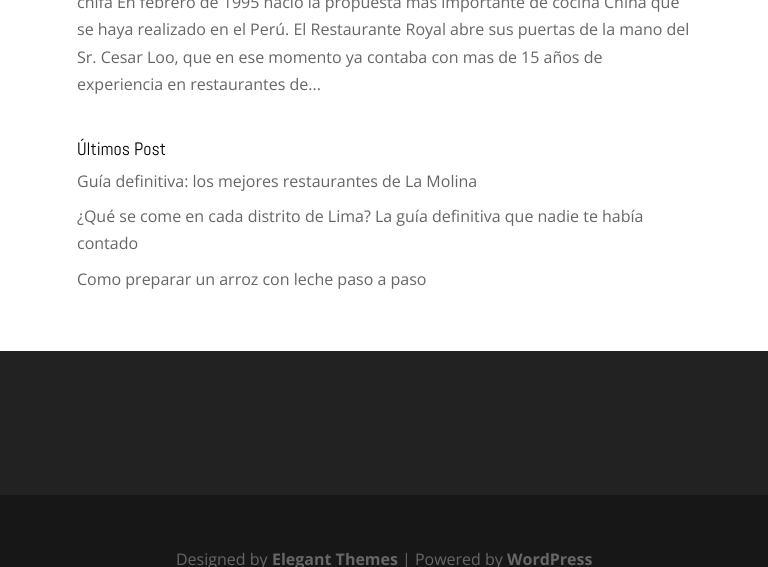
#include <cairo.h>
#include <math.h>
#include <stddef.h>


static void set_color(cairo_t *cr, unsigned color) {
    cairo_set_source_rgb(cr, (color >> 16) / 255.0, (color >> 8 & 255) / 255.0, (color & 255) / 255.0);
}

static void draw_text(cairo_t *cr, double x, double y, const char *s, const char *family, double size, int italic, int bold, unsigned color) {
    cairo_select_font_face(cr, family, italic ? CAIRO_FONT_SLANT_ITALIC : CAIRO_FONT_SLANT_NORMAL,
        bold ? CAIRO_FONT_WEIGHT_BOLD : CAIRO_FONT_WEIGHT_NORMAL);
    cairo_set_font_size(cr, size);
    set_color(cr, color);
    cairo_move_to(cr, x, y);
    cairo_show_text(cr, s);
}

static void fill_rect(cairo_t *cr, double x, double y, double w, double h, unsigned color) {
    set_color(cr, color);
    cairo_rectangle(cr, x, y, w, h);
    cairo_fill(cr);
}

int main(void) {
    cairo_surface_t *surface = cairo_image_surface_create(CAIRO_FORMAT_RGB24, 768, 567);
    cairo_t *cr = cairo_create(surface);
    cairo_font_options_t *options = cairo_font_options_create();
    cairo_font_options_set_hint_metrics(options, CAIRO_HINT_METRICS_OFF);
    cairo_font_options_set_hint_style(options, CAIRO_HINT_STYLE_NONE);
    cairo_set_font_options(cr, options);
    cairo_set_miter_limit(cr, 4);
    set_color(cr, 0xFFFFFF);
    cairo_paint(cr);
    draw_text(cr, 77, 8, "chifa En febrero de 1995 nació la propuesta mas importante de cocina China que", "Open Sans", 16, 0, 0, 0x666666);
    draw_text(cr, 77, 35, "se haya realizado en el Perú. El Restaurante Royal abre sus puertas de la mano del", "Open Sans", 16, 0, 0, 0x666666);
    draw_text(cr, 77, 63, "Sr. Cesar Loo, que en ese momento ya contaba con mas de 15 años de", "Open Sans", 16, 0, 0, 0x666666);
    draw_text(cr, 77, 90, "experiencia en restaurantes de...", "Open Sans", 16, 0, 0, 0x666666);
    draw_text(cr, 77, 155, "Últimos Post", "Abel", 18, 0, 0, 0x000000);
    draw_text(cr, 77, 187, "Guía definitiva: los mejores restaurantes de La Molina", "Open Sans", 16, 0, 0, 0x666666);
    draw_text(cr, 77, 222, "¿Qué se come en cada distrito de Lima? La guía definitiva que nadie te había", "Open Sans", 16, 0, 0, 0x666666);
    draw_text(cr, 77, 249, "contado", "Open Sans", 16, 0, 0, 0x666666);
    draw_text(cr, 77, 285, "Como preparar un arroz con leche paso a paso", "Open Sans", 16, 0, 0, 0x666666);
    fill_rect(cr, 0, 351, 768, 144, 0x222222);
    fill_rect(cr, 0, 495, 768, 72, 0x171717);
    draw_text(cr, 176, 565, "Designed by", "Open Sans", 16, 0, 0, 0x666666);
    draw_text(cr, 272, 565, "Elegant Themes", "Open Sans", 16, 0, 1, 0x666666);
    draw_text(cr, 402, 565, "| Powered by", "Open Sans", 16, 0, 0, 0x666666);
    draw_text(cr, 507, 565, "WordPress", "Open Sans", 16, 0, 1, 0x666666);
    cairo_surface_write_to_png(surface, "output.png");
    cairo_font_options_destroy(options);
    cairo_destroy(cr);
    cairo_surface_destroy(surface);
    return 0;
}
